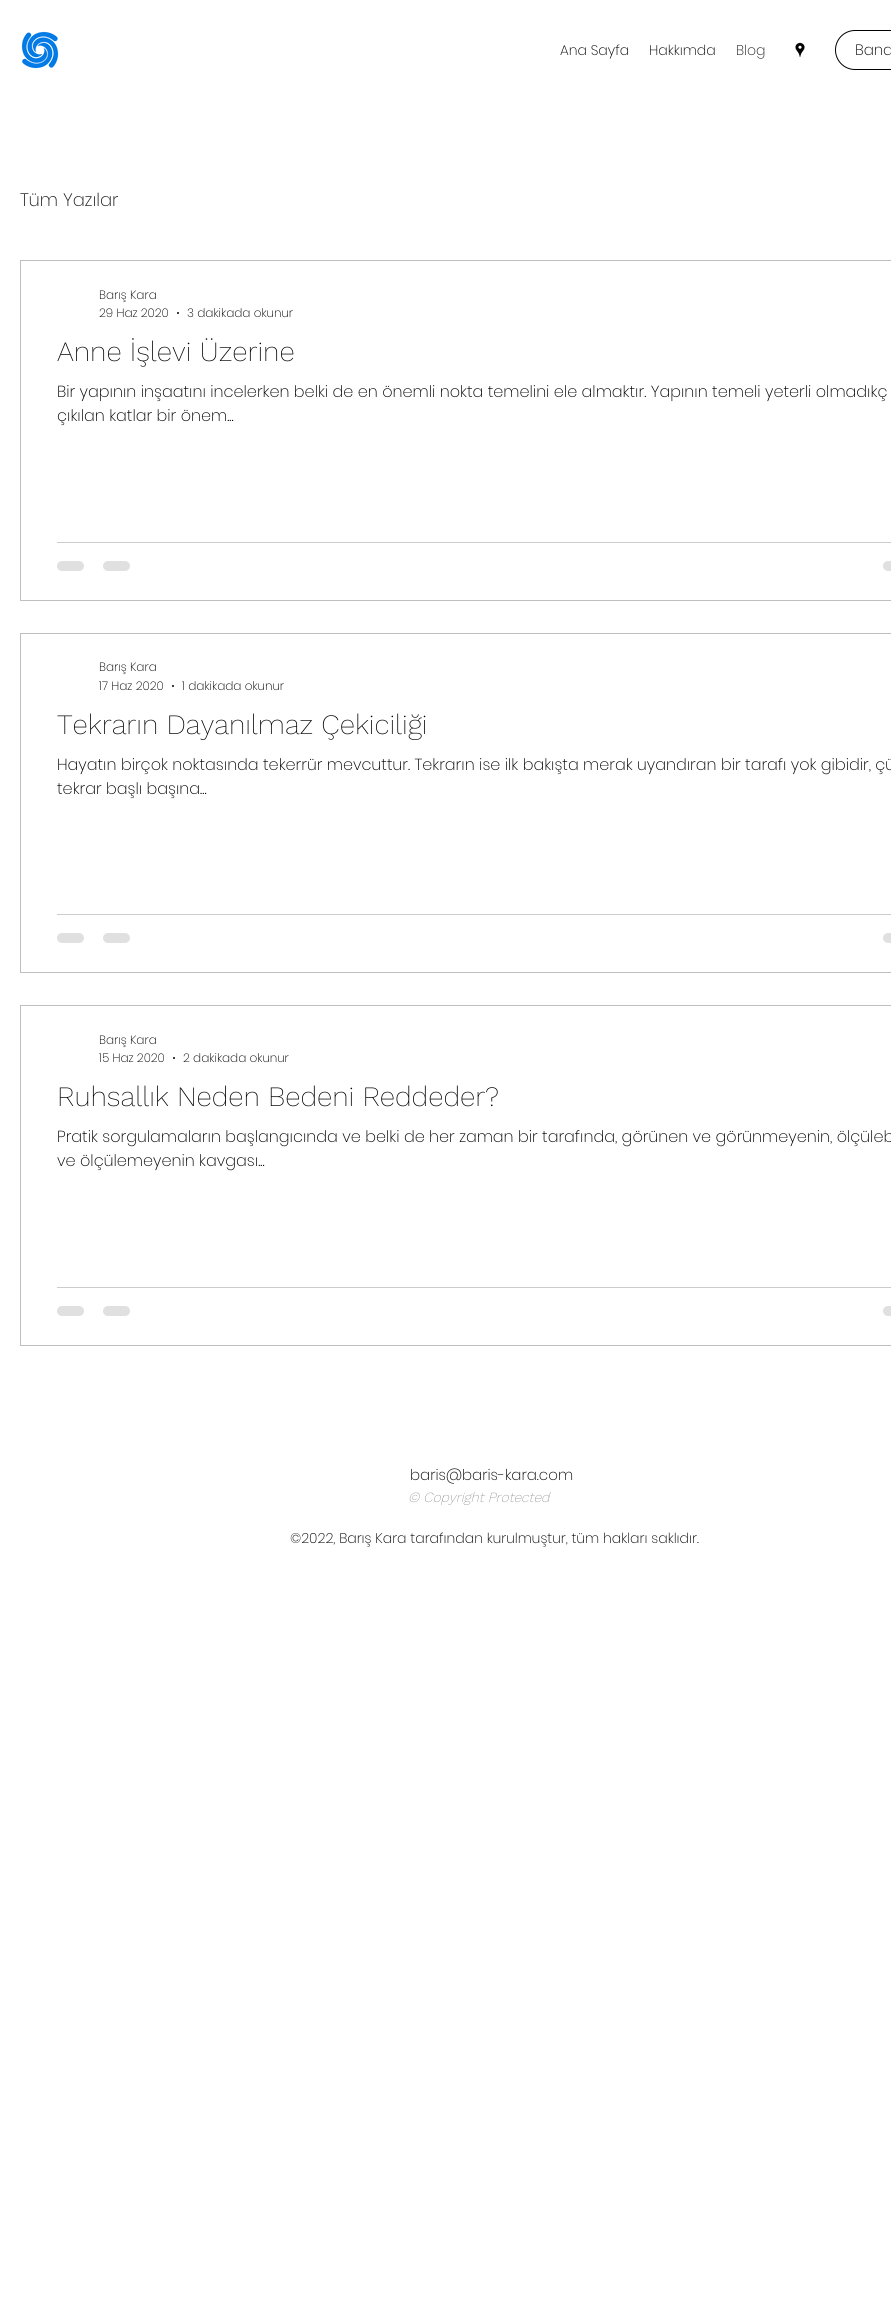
#include <cairo.h>
#include <math.h>
#include <stddef.h>


static void set_color(cairo_t *cr, unsigned color) {
    cairo_set_source_rgb(cr, (color >> 16) / 255.0, (color >> 8 & 255) / 255.0, (color & 255) / 255.0);
}

static void draw_text(cairo_t *cr, double x, double y, const char *s, const char *family, double size, int italic, int bold, unsigned color) {
    cairo_select_font_face(cr, family, italic ? CAIRO_FONT_SLANT_ITALIC : CAIRO_FONT_SLANT_NORMAL,
        bold ? CAIRO_FONT_WEIGHT_BOLD : CAIRO_FONT_WEIGHT_NORMAL);
    cairo_set_font_size(cr, size);
    set_color(cr, color);
    cairo_move_to(cr, x, y);
    cairo_show_text(cr, s);
}

static void fill_rect(cairo_t *cr, double x, double y, double w, double h, unsigned color) {
    set_color(cr, color);
    cairo_rectangle(cr, x, y, w, h);
    cairo_fill(cr);
}

static void rounded_rect(cairo_t *cr, double x, double y, double w, double h, double r) {
    cairo_new_sub_path(cr);
    cairo_arc(cr, x + w - r, y + h - r, r, 0, M_PI / 2);
    cairo_arc(cr, x + r, y + h - r, r, M_PI / 2, M_PI);
    cairo_arc(cr, x + r, y + r, r, M_PI, 1.5 * M_PI);
    cairo_arc(cr, x + w - r, y + r, r, 1.5 * M_PI, 2 * M_PI);
    cairo_close_path(cr);
}

static void draw_image(cairo_t *cr, const char *path, double x, double y, double w, double h) {
    cairo_surface_t *image = cairo_image_surface_create_from_png(path);
    cairo_save(cr);
    cairo_set_source_surface(cr, image, x, y);
    cairo_rectangle(cr, x, y, w, h);
    cairo_fill(cr);
    cairo_restore(cr);
    cairo_surface_destroy(image);
}

int main(void) {
    cairo_surface_t *surface = cairo_image_surface_create(CAIRO_FORMAT_RGB24, 891, 2309);
    cairo_t *cr = cairo_create(surface);
    cairo_font_options_t *options = cairo_font_options_create();
    cairo_font_options_set_hint_metrics(options, CAIRO_HINT_METRICS_OFF);
    cairo_font_options_set_hint_style(options, CAIRO_HINT_STYLE_NONE);
    cairo_set_font_options(cr, options);
    cairo_set_miter_limit(cr, 4);
    set_color(cr, 0xFFFFFF);
    cairo_paint(cr);
    draw_image(cr, "assets/img1.png", 21, 31, 38, 38);
    draw_text(cr, 560, 55, "Ana Sayfa", "Poppins ExtraLight", 14, 0, 0, 0x000000);
    draw_text(cr, 649, 55, "Hakkımda", "Poppins ExtraLight", 14, 0, 0, 0x000000);
    draw_text(cr, 736, 55, "Blog", "Poppins ExtraLight", 14, 0, 0, 0x191919);
    draw_image(cr, "assets/img2.png", 795, 42, 10, 15);
    rounded_rect(cr, 835.5, 30.5, 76, 39, 19.5);
    set_color(cr, 0x000000);
    cairo_set_line_width(cr, 1);
    cairo_stroke(cr);
    draw_text(cr, 855, 55, "Bana", "Poppins ExtraLight", 15, 0, 0, 0x000000);
    draw_text(cr, 20, 206, "Tüm Yazılar", "Poppins ExtraLight", 18, 0, 0, 0x191919);
    cairo_rectangle(cr, 20.5, 260.5, 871, 340);
    set_color(cr, 0xBFBFBF);
    cairo_stroke(cr);
    draw_text(cr, 99, 299, "Barış Kara", "Poppins ExtraLight", 12, 0, 0, 0x000000);
    draw_text(cr, 99, 317, "29 Haz 2020", "Poppins ExtraLight", 12, 0, 0, 0x000000);
    cairo_new_path(cr);
    cairo_arc(cr, 178, 313, 1, 0, 2 * M_PI);
    cairo_fill(cr);
    draw_text(cr, 187, 317, "3 dakikada okunur", "Poppins ExtraLight", 12, 0, 0, 0x000000);
    draw_text(cr, 57, 361, "Anne İşlevi Üzerine", "Work Sans ExtraLight", 28, 0, 0, 0x000000);
    draw_text(cr, 57, 397, "Bir yapının inşaatını incelerken belki de en önemli nokta temelini ele almaktır. Yapının temeli yeterli olmadıkç", "Poppins ExtraLight", 16, 0, 0, 0x000000);
    draw_text(cr, 57, 421, "çıkılan katlar bir önem...", "Poppins ExtraLight", 16, 0, 0, 0x000000);
    fill_rect(cr, 57, 542, 834, 1, 0xCCCCCC);
    set_color(cr, 0xE0E0E0);
    rounded_rect(cr, 57, 561, 27, 10, 5);
    cairo_fill(cr);
    rounded_rect(cr, 103, 561, 27, 10, 5);
    cairo_fill(cr);
    rounded_rect(cr, 883, 561, 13, 10, 5);
    cairo_fill(cr);
    cairo_rectangle(cr, 20.5, 633.5, 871, 339);
    set_color(cr, 0xBFBFBF);
    cairo_stroke(cr);
    draw_text(cr, 99, 671, "Barış Kara", "Poppins ExtraLight", 12, 0, 0, 0x000000);
    draw_text(cr, 99, 690, "17 Haz 2020", "Poppins ExtraLight", 12, 0, 0, 0x000000);
    cairo_new_path(cr);
    cairo_arc(cr, 173, 686, 1, 0, 2 * M_PI);
    cairo_fill(cr);
    draw_text(cr, 182, 690, "1 dakikada okunur", "Poppins ExtraLight", 12, 0, 0, 0x000000);
    draw_text(cr, 57, 734, "Tekrarın Dayanılmaz Çekiciliği", "Work Sans ExtraLight", 28, 0, 0, 0x000000);
    draw_text(cr, 57, 770, "Hayatın birçok noktasında tekerrür mevcuttur. Tekrarın ise ilk bakışta merak uyandıran bir tarafı yok gibidir, çü", "Poppins ExtraLight", 16, 0, 0, 0x000000);
    draw_text(cr, 57, 794, "tekrar başlı başına...", "Poppins ExtraLight", 16, 0, 0, 0x000000);
    fill_rect(cr, 57, 914, 834, 1, 0xCCCCCC);
    set_color(cr, 0xE0E0E0);
    rounded_rect(cr, 57, 933, 27, 10, 5);
    cairo_fill(cr);
    rounded_rect(cr, 103, 933, 27, 10, 5);
    cairo_fill(cr);
    rounded_rect(cr, 883, 933, 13, 10, 5);
    cairo_fill(cr);
    cairo_rectangle(cr, 20.5, 1005.5, 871, 340);
    set_color(cr, 0xBFBFBF);
    cairo_stroke(cr);
    draw_text(cr, 99, 1044, "Barış Kara", "Poppins ExtraLight", 12, 0, 0, 0x000000);
    draw_text(cr, 99, 1062, "15 Haz 2020", "Poppins ExtraLight", 12, 0, 0, 0x000000);
    cairo_new_path(cr);
    cairo_arc(cr, 174, 1058, 1, 0, 2 * M_PI);
    cairo_fill(cr);
    draw_text(cr, 183, 1062, "2 dakikada okunur", "Poppins ExtraLight", 12, 0, 0, 0x000000);
    draw_text(cr, 57, 1106, "Ruhsallık Neden Bedeni Reddeder?", "Work Sans ExtraLight", 28, 0, 0, 0x000000);
    draw_text(cr, 57, 1142, "Pratik sorgulamaların başlangıcında ve belki de her zaman bir tarafında, görünen ve görünmeyenin, ölçüleb", "Poppins ExtraLight", 16, 0, 0, 0x000000);
    draw_text(cr, 57, 1166, "ve ölçülemeyenin kavgası...", "Poppins ExtraLight", 16, 0, 0, 0x000000);
    fill_rect(cr, 57, 1287, 834, 1, 0xCCCCCC);
    set_color(cr, 0xE0E0E0);
    rounded_rect(cr, 57, 1306, 27, 10, 5);
    cairo_fill(cr);
    rounded_rect(cr, 103, 1306, 27, 10, 5);
    cairo_fill(cr);
    rounded_rect(cr, 883, 1306, 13, 10, 5);
    cairo_fill(cr);
    draw_text(cr, 410, 1480, "baris@baris-kara.com", "Poppins ExtraLight", 15, 0, 0, 0x000000);
    draw_text(cr, 408, 1502, "© Copyright Protected", "Work Sans ExtraLight", 14, 1, 0, 0x808080);
    draw_text(cr, 290, 1543, "©2022, Barış Kara tarafından kurulmuştur, tüm hakları saklıdır.", "Poppins ExtraLight", 14, 0, 0, 0x000000);
    cairo_surface_write_to_png(surface, "output.png");
    cairo_font_options_destroy(options);
    cairo_destroy(cr);
    cairo_surface_destroy(surface);
    return 0;
}
